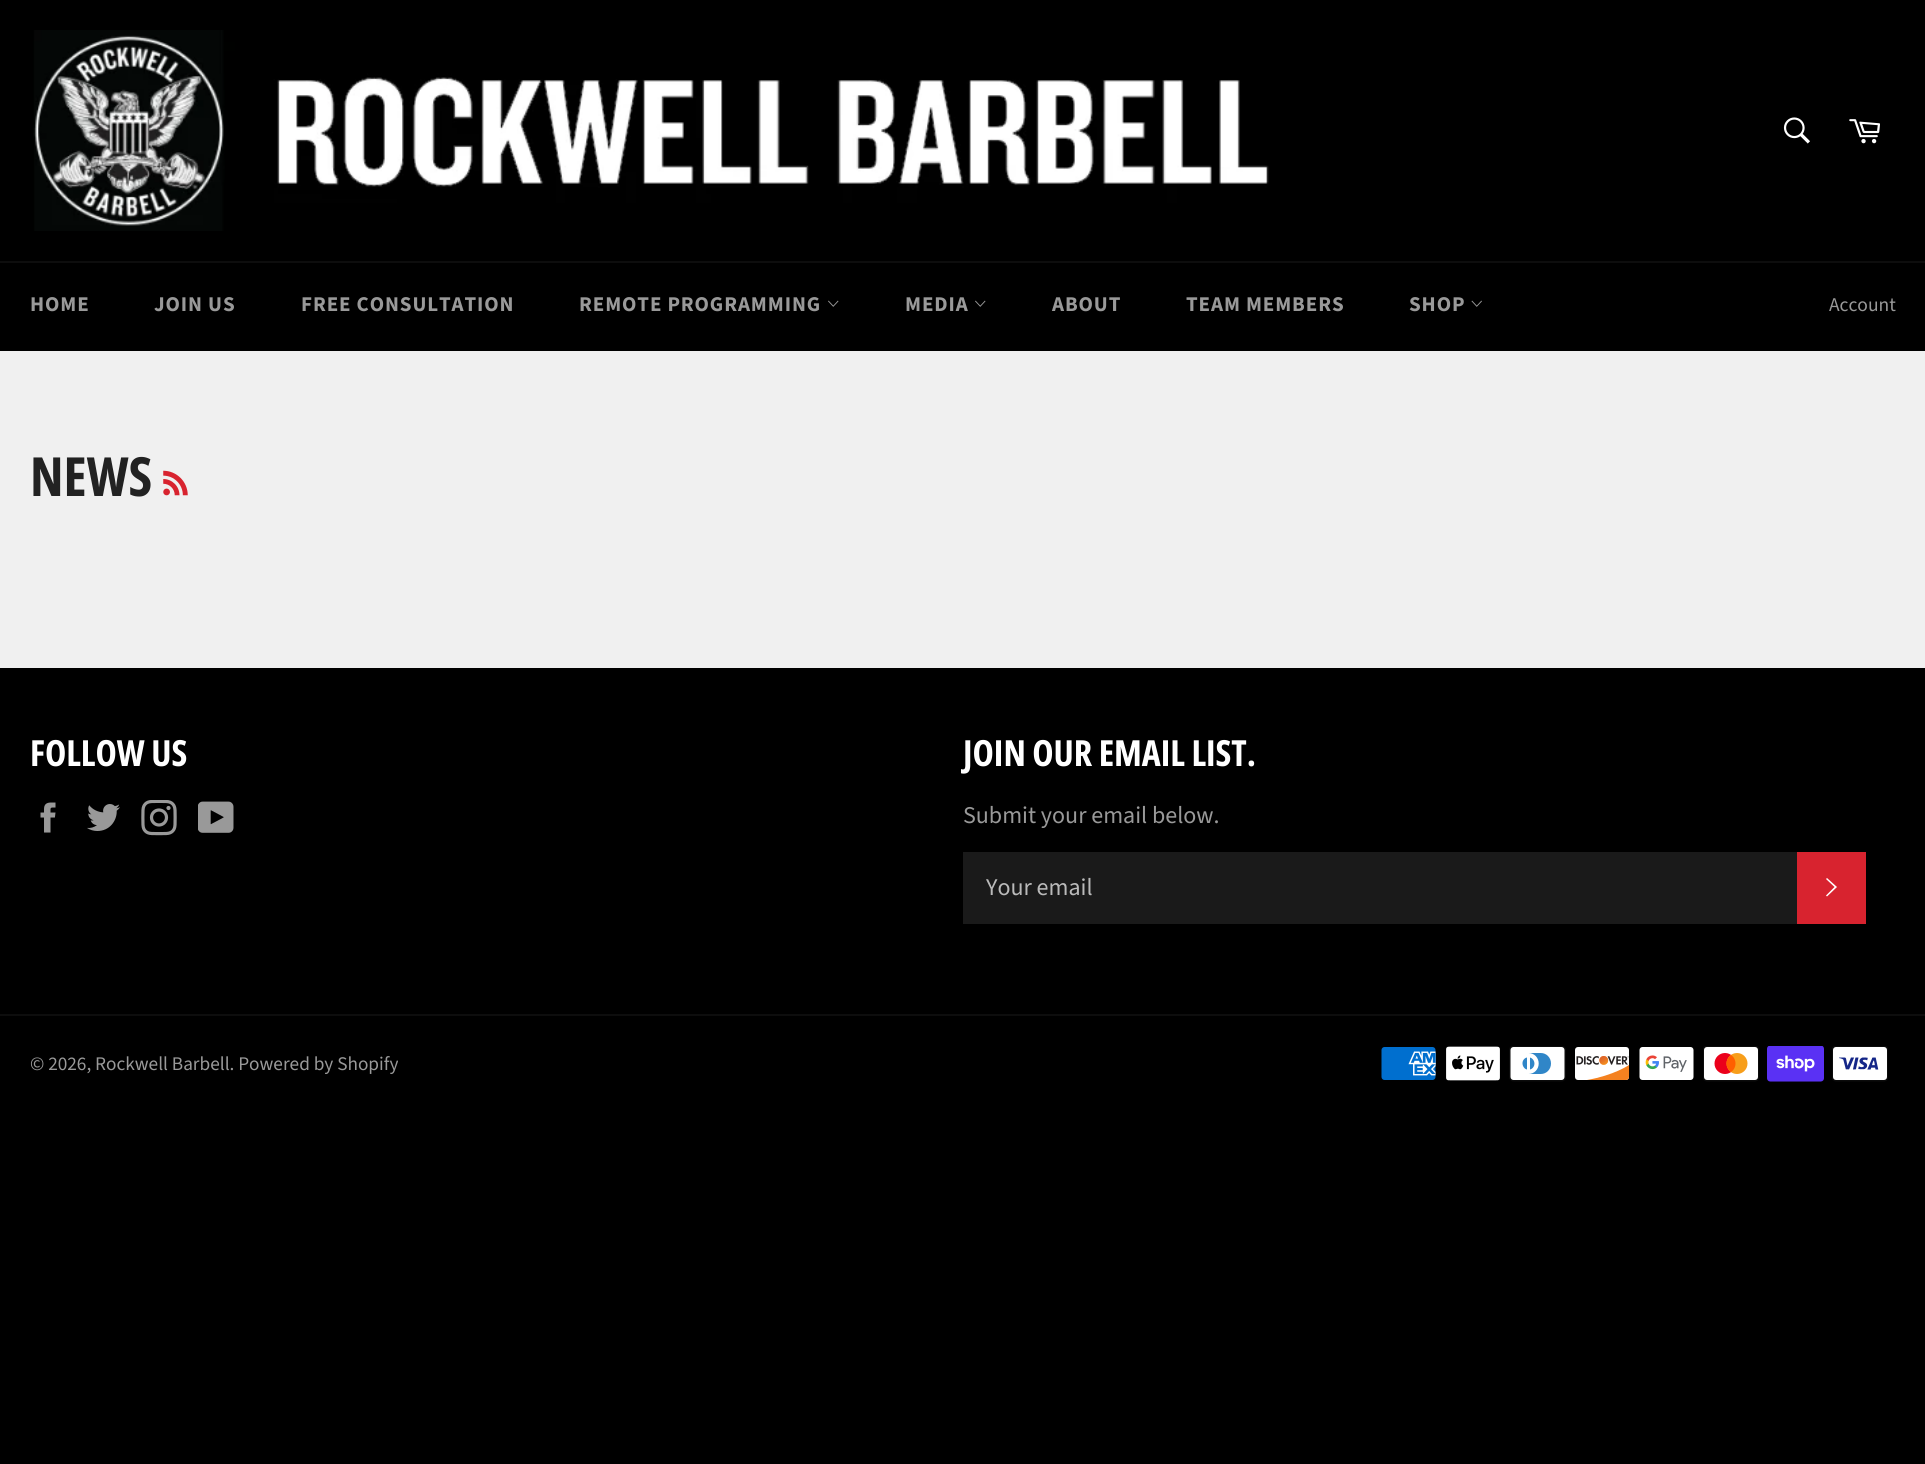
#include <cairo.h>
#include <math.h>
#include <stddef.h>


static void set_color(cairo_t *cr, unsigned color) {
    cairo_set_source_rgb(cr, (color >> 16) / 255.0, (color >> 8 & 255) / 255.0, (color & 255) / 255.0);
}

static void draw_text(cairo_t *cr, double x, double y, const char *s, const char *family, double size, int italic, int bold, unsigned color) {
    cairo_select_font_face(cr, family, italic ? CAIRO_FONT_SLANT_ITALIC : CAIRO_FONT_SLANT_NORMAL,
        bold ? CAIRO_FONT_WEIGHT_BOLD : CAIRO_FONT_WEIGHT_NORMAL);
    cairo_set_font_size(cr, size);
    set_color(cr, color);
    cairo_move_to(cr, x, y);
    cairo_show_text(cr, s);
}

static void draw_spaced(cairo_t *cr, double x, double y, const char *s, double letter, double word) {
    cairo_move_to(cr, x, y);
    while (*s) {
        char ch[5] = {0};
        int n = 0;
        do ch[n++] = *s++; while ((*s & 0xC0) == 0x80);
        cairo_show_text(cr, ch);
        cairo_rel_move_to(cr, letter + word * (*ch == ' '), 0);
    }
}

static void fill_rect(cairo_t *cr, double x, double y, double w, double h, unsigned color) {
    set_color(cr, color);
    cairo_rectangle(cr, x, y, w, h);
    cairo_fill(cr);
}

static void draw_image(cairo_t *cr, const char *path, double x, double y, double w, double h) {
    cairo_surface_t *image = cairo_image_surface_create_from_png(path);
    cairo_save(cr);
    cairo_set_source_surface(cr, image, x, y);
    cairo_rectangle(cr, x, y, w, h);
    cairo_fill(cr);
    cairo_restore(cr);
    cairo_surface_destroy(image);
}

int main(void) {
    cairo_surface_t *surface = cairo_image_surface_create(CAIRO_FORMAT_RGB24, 1925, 1464);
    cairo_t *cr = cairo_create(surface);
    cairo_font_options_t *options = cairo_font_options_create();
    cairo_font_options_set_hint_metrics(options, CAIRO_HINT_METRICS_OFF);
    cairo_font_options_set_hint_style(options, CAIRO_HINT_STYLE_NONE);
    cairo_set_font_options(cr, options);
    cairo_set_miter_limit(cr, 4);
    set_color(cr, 0x000000);
    cairo_paint(cr);
    fill_rect(cr, 0, 351, 1925, 317, 0xF0F0F0);
    draw_image(cr, "assets/img1.png", 33, 30, 1236, 201);
    draw_image(cr, "assets/img2.png", 1783, 117, 27, 27);
    draw_image(cr, "assets/img3.png", 1849, 119, 31, 25);
    fill_rect(cr, 0, 261, 1925, 2, 0x0D0D0D);
    cairo_select_font_face(cr, "Source Sans Pro", CAIRO_FONT_SLANT_NORMAL, CAIRO_FONT_WEIGHT_BOLD);
    cairo_set_font_size(cr, 21);
    set_color(cr, 0x999999);
    draw_spaced(cr, 30, 311, "HOME", 0.9, 0);
    draw_spaced(cr, 154, 311, "JOIN US", 0.9, 0);
    draw_spaced(cr, 301, 311, "FREE CONSULTATION", 0.9, 0);
    draw_spaced(cr, 579, 311, "REMOTE PROGRAMMING", 0.9, 0);
    draw_image(cr, "assets/img4.png", 828, 300, 11, 7);
    draw_spaced(cr, 905, 311, "MEDIA", 0.9, 0);
    draw_image(cr, "assets/img4.png", 975, 300, 11, 7);
    draw_spaced(cr, 1052, 311, "ABOUT", 0.9, 0);
    draw_spaced(cr, 1186, 311, "TEAM MEMBERS", 0.9, 0);
    draw_spaced(cr, 1409, 311, "SHOP", 0.9, 0);
    draw_image(cr, "assets/img5.png", 1471, 300, 11, 7);
    draw_text(cr, 1829, 311, "Account", "Source Sans Pro", 19.5, 0, 0, 0x999999);
    draw_text(cr, 30, 496, "NEWS", "Open Sans Condensed", 54, 0, 1, 0x222222);
    draw_image(cr, "assets/img6.png", 163, 470, 25, 26);
    draw_text(cr, 30, 766, "FOLLOW US", "Open Sans Condensed", 36, 0, 1, 0xFFFFFF);
    draw_image(cr, "assets/img7.png", 40, 802, 16, 31);
    draw_image(cr, "assets/img8.png", 87, 804, 33, 27);
    draw_image(cr, "assets/img9.png", 141, 800, 36, 36);
    draw_image(cr, "assets/img10.png", 198, 801, 36, 32);
    draw_text(cr, 963, 766, "JOIN OUR EMAIL LIST.", "Open Sans Condensed", 36, 0, 1, 0xFFFFFF);
    draw_text(cr, 963, 823, "Submit your email below.", "Source Sans Pro", 24, 0, 0, 0x999999);
    fill_rect(cr, 963, 852, 834, 72, 0x1A1A1A);
    draw_text(cr, 986, 895, "Your email", "Source Sans Pro", 24, 0, 0, 0xBABABA);
    fill_rect(cr, 1797, 852, 69, 72, 0xD8232F);
    set_color(cr, 0xFFFFFF);
    cairo_new_path(cr);
    cairo_move_to(cr, 1826, 879);
    cairo_line_to(cr, 1827, 878);
    cairo_line_to(cr, 1837, 887);
    cairo_line_to(cr, 1827, 896.5);
    cairo_line_to(cr, 1826, 895.5);
    cairo_line_to(cr, 1834.5, 887);
    cairo_close_path(cr);
    cairo_fill(cr);
    fill_rect(cr, 0, 1014, 1925, 2, 0x0D0D0D);
    draw_text(cr, 30, 1070, "© 2026, Rockwell Barbell. Powered by Shopify", "Source Sans Pro", 19.25, 0, 0, 0x999999);
    draw_image(cr, "assets/img11.png", 1381, 1047, 55, 33);
    draw_image(cr, "assets/img12.png", 1446, 1046, 54, 35);
    draw_image(cr, "assets/img13.png", 1509, 1046, 57, 36);
    draw_image(cr, "assets/img14.png", 1575, 1047, 55, 33);
    draw_image(cr, "assets/img15.png", 1639, 1047, 55, 33);
    draw_image(cr, "assets/img16.png", 1703, 1046, 56, 36);
    draw_image(cr, "assets/img17.png", 1767, 1046, 57, 36);
    draw_image(cr, "assets/img18.png", 1832, 1046, 56, 36);
    cairo_surface_write_to_png(surface, "output.png");
    cairo_font_options_destroy(options);
    cairo_destroy(cr);
    cairo_surface_destroy(surface);
    return 0;
}
